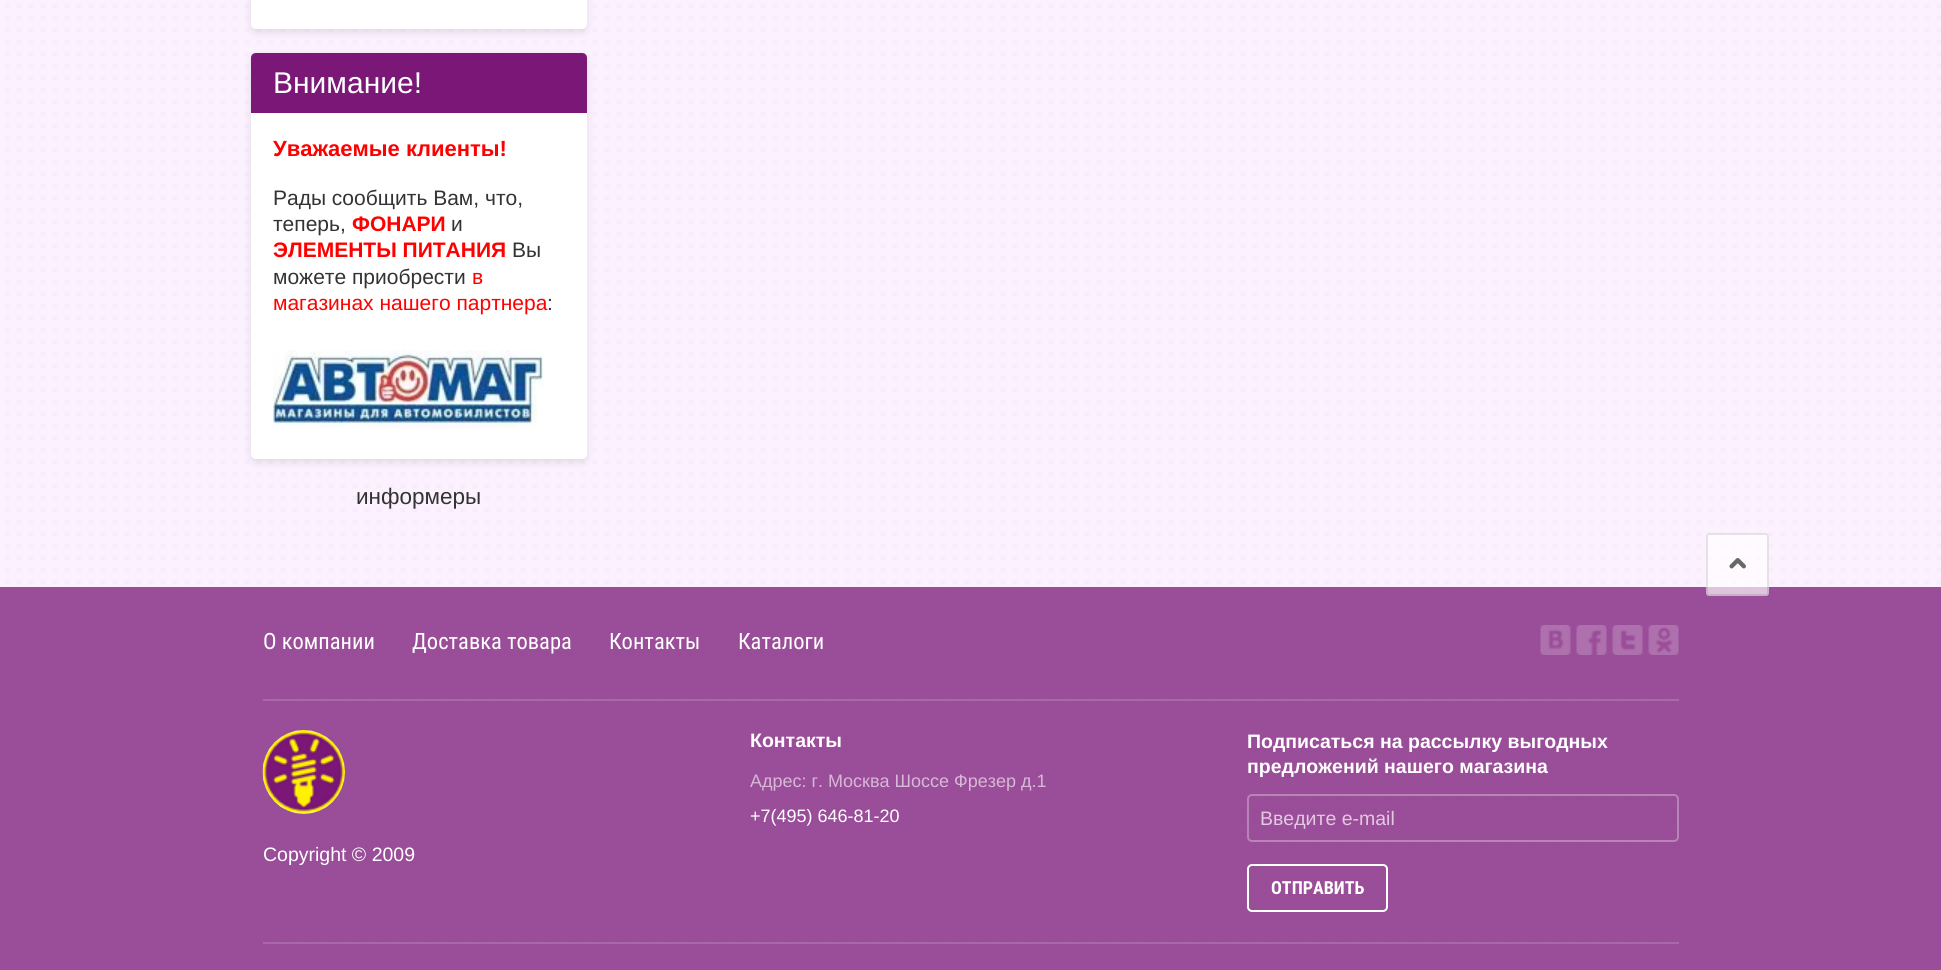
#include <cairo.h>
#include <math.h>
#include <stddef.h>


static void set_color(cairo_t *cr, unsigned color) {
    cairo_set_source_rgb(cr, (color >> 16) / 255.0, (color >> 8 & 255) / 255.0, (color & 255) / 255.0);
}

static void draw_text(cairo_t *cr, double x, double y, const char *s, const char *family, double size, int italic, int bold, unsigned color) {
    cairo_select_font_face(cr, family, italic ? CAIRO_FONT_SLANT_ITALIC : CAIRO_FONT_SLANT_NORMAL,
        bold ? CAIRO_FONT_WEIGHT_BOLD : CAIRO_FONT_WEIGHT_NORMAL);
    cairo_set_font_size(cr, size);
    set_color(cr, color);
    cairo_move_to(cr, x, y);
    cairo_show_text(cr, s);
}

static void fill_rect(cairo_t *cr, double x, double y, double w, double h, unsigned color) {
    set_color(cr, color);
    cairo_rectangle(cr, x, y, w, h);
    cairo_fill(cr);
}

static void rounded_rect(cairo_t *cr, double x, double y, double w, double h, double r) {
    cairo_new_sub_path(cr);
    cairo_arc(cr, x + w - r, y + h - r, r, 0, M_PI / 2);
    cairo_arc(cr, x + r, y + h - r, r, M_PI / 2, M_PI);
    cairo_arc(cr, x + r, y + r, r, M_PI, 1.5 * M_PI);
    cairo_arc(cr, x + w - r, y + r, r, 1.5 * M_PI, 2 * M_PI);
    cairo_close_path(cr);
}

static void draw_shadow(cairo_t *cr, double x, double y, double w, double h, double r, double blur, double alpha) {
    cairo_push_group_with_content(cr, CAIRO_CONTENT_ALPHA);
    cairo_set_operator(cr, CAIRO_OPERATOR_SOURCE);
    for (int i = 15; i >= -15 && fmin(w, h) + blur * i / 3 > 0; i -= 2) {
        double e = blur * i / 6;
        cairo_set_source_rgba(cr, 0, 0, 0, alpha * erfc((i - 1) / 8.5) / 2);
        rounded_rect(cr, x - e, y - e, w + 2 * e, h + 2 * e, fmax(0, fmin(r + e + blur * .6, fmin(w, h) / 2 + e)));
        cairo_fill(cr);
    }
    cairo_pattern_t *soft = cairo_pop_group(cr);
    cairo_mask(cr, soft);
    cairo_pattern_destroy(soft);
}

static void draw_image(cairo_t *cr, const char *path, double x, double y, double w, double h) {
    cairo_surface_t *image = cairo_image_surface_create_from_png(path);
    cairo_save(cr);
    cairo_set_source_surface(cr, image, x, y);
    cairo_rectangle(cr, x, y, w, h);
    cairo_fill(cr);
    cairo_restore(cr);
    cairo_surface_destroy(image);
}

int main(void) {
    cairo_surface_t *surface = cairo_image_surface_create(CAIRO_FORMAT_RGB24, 1941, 970);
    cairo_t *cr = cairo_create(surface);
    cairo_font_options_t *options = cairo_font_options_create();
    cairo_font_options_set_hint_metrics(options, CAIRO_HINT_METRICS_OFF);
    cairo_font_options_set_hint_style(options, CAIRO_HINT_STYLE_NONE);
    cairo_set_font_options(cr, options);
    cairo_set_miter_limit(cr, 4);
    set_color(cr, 0xFCF1FE);
    cairo_paint(cr);
    draw_image(cr, "assets/img1.png", 5, 4, 1936, 964);
    set_color(cr, 0x000000);
    draw_shadow(cr, 251, -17, 336, 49, 5, 4, 0.1);
    set_color(cr, 0xFFFFFF);
    rounded_rect(cr, 251, -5, 336, 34, 5);
    cairo_fill(cr);
    set_color(cr, 0x000000);
    draw_shadow(cr, 251, 56, 336, 406, 5, 4, 0.1);
    set_color(cr, 0xFFFFFF);
    rounded_rect(cr, 251, 53, 336, 406, 5);
    cairo_fill(cr);
    set_color(cr, 0x7A1777);
    cairo_new_path(cr);
    cairo_move_to(cr, 256, 53);
    cairo_line_to(cr, 582, 53);
    cairo_curve_to(cr, 585, 53, 587, 55, 587, 58);
    cairo_line_to(cr, 587, 113);
    cairo_line_to(cr, 251, 113);
    cairo_line_to(cr, 251, 58);
    cairo_curve_to(cr, 251, 55, 253, 53, 256, 53);
    cairo_close_path(cr);
    cairo_fill(cr);
    draw_text(cr, 273, 93, "Внимание!", "Liberation Sans", 30, 0, 0, 0xFFFFFF);
    draw_text(cr, 273, 156, "Уважаемые клиенты!", "Liberation Sans", 22, 0, 1, 0xFF0000);
    draw_text(cr, 273, 205, "Рады сообщить Вам, что,", "Liberation Sans", 21, 0, 0, 0x333333);
    draw_text(cr, 273, 231, "теперь,", "Liberation Sans", 21, 0, 0, 0x333333);
    draw_text(cr, 352, 231, "ФОНАРИ", "Liberation Sans", 21, 0, 1, 0xFF0000);
    draw_text(cr, 451, 231, "и", "Liberation Sans", 21, 0, 0, 0x333333);
    draw_text(cr, 273, 257, "ЭЛЕМЕНТЫ ПИТАНИЯ", "Liberation Sans", 21, 0, 1, 0xFF0000);
    draw_text(cr, 512, 257, "Вы", "Liberation Sans", 21, 0, 0, 0x333333);
    draw_text(cr, 273, 284, "можете приобрести", "Liberation Sans", 21, 0, 0, 0x333333);
    draw_text(cr, 472, 284, "в", "Liberation Sans", 21, 0, 0, 0xFF0000);
    draw_text(cr, 273, 310, "магазинах нашего партнера", "Liberation Sans", 21, 0, 0, 0xFF0000);
    draw_text(cr, 547, 310, ":", "Liberation Sans", 21, 0, 0, 0x333333);
    draw_image(cr, "assets/img2.png", 273, 350, 270, 79);
    draw_text(cr, 356, 504, "информеры", "Liberation Sans", 22.5, 0, 0, 0x333333);
    cairo_set_source_rgba(cr, 0.478, 0.09, 0.467, 0.75);
    cairo_rectangle(cr, 0, 587, 1941, 383);
    cairo_fill(cr);
    cairo_set_source_rgba(cr, 1, 1, 1, 0.67);
    rounded_rect(cr, 1706, 533, 63, 63, 3);
    cairo_fill(cr);
    rounded_rect(cr, 1707, 534, 61, 61, 2);
    cairo_set_source_rgba(cr, 0, 0, 0, 0.1);
    cairo_stroke(cr);
    draw_image(cr, "assets/img3.png", 1729, 558, 17, 11);
    fill_rect(cr, 263, 699, 1416, 2, 0xA968A8);
    draw_text(cr, 263, 649, "О компании", "Roboto Condensed", 22.5, 0, 0, 0xFFFFFF);
    draw_text(cr, 412, 649, "Доставка товара", "Roboto Condensed", 22.5, 0, 0, 0xFFFFFF);
    draw_text(cr, 609, 649, "Контакты", "Roboto Condensed", 22.5, 0, 0, 0xFFFFFF);
    draw_text(cr, 738, 649, "Каталоги", "Roboto Condensed", 22.5, 0, 0, 0xFFFFFF);
    draw_image(cr, "assets/img4.png", 1540, 625, 31, 30);
    draw_image(cr, "assets/img5.png", 1576, 625, 31, 30);
    draw_image(cr, "assets/img6.png", 1612, 625, 31, 30);
    draw_image(cr, "assets/img7.png", 1648, 625, 31, 30);
    draw_text(cr, 750, 747, "Контакты", "Liberation Sans", 19.5, 0, 1, 0xFFFFFF);
    draw_text(cr, 750, 787, "Адрес: г. Москва Шоссе Фрезер д.1", "Liberation Sans", 18, 0, 0, 0xD7B8D6);
    draw_text(cr, 750, 822, "+7(495) 646-81-20", "Liberation Sans", 18, 0, 0, 0xFFFFFF);
    draw_image(cr, "assets/img8.png", 262, 730, 83, 84);
    draw_text(cr, 263, 861, "Copyright © 2009", "Liberation Sans", 19.5, 0, 0, 0xFFFFFF);
    draw_text(cr, 1247, 748, "Подписаться на рассылку выгодных", "Liberation Sans", 19.5, 0, 1, 0xFFFFFF);
    draw_text(cr, 1247, 773, "предложений нашего магазина", "Liberation Sans", 19.5, 0, 1, 0xFFFFFF);
    rounded_rect(cr, 1248, 795, 430, 46, 4);
    set_color(cr, 0xB983B7);
    cairo_stroke(cr);
    draw_text(cr, 1260, 825, "Введите e-mail", "Liberation Sans", 19.5, 0, 0, 0xE1CAE0);
    rounded_rect(cr, 1248, 865, 139, 46, 4);
    set_color(cr, 0xFFFFFF);
    cairo_stroke(cr);
    draw_text(cr, 1271, 894, "ОТПРАВИТЬ", "Roboto Condensed", 18, 0, 1, 0xFFFFFF);
    fill_rect(cr, 263, 942, 1416, 2, 0xA968A8);
    cairo_surface_write_to_png(surface, "output.png");
    cairo_font_options_destroy(options);
    cairo_destroy(cr);
    cairo_surface_destroy(surface);
    return 0;
}
